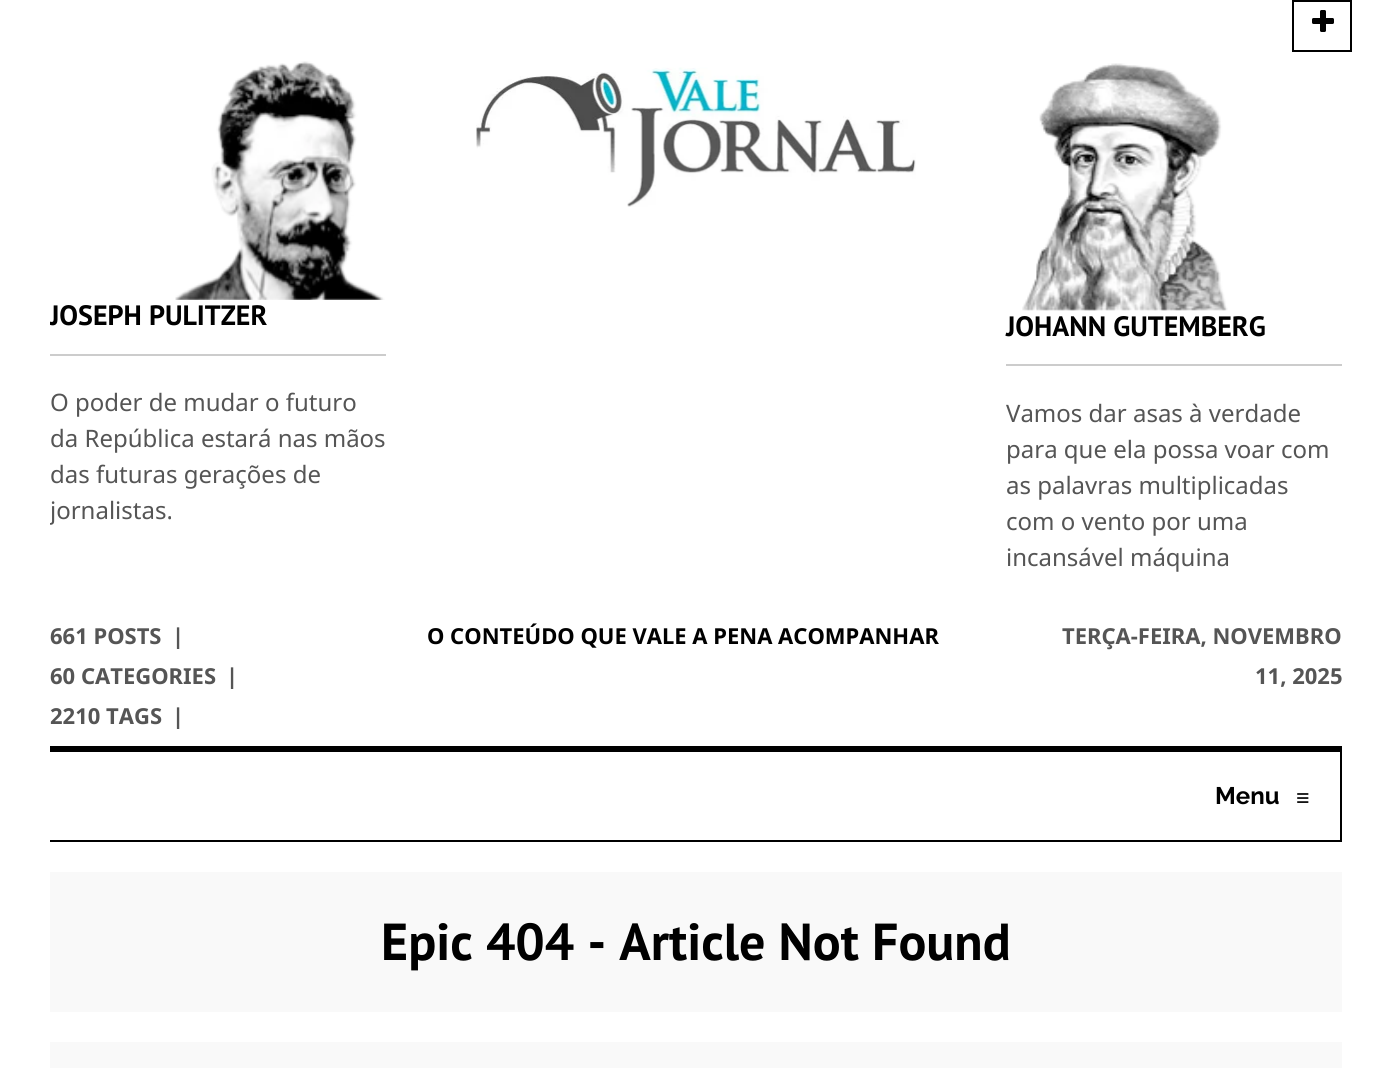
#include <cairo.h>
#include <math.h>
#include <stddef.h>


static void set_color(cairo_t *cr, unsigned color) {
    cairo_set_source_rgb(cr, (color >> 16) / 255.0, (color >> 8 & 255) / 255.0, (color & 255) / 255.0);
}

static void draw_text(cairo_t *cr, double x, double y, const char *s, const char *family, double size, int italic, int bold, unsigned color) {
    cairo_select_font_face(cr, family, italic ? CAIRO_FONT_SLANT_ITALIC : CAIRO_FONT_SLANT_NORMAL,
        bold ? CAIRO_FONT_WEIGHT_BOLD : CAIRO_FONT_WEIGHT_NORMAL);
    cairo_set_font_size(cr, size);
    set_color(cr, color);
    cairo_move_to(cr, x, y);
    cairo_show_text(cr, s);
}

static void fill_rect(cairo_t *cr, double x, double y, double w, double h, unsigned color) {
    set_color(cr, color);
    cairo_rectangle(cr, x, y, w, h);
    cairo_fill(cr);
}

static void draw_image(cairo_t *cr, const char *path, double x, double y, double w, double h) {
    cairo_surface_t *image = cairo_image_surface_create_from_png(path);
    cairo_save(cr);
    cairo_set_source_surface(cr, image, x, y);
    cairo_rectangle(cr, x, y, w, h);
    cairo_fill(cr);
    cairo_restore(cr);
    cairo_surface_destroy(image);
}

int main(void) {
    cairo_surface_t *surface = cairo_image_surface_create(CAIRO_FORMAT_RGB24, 1391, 1068);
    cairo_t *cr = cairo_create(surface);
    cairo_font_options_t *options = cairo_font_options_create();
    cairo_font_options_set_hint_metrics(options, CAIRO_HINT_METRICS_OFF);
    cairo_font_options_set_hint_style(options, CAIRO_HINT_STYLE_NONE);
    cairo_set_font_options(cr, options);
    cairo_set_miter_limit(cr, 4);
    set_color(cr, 0xFFFFFF);
    cairo_paint(cr);
    cairo_rectangle(cr, 1293, 1, 58, 50);
    set_color(cr, 0x000000);
    cairo_stroke(cr);
    draw_image(cr, "assets/img1.png", 1312, 10, 22, 22);
    draw_image(cr, "assets/img2.png", 476, 67, 440, 140);
    draw_image(cr, "assets/img3.png", 175, 61, 210, 239);
    cairo_save(cr);
    cairo_rectangle(cr, 50, 0, 1292, 746);
    cairo_clip(cr);
    draw_text(cr, 50, 325, "JOSEPH PULITZER", "PT Sans", 28, 0, 1, 0x000000);
    cairo_restore(cr);
    fill_rect(cr, 50, 354, 336, 2, 0xCCCCCC);
    draw_text(cr, 50, 411, "O poder de mudar o futuro", "Noto Sans", 24, 0, 0, 0x555555);
    draw_text(cr, 50, 447, "da República estará nas mãos", "Noto Sans", 24, 0, 0, 0x555555);
    draw_text(cr, 50, 483, "das futuras gerações de", "Noto Sans", 24, 0, 0, 0x555555);
    cairo_save(cr);
    cairo_rectangle(cr, 50, 0, 1292, 746);
    cairo_clip(cr);
    draw_text(cr, 50, 519, "jornalistas.", "Noto Sans", 24, 0, 0, 0x555555);
    cairo_restore(cr);
    draw_image(cr, "assets/img4.png", 1022, 63, 206, 248);
    draw_text(cr, 1006, 336, "JOHANN GUTEMBERG", "PT Sans", 28, 0, 1, 0x000000);
    fill_rect(cr, 1006, 364, 336, 2, 0xCCCCCC);
    draw_text(cr, 1006, 422, "Vamos dar asas à verdade", "Noto Sans", 24, 0, 0, 0x555555);
    draw_text(cr, 1006, 458, "para que ela possa voar com", "Noto Sans", 24, 0, 0, 0x555555);
    draw_text(cr, 1006, 494, "as palavras multiplicadas", "Noto Sans", 24, 0, 0, 0x555555);
    draw_text(cr, 1006, 530, "com o vento por uma", "Noto Sans", 24, 0, 0, 0x555555);
    draw_text(cr, 1006, 566, "incansável máquina", "Noto Sans", 24, 0, 0, 0x555555);
    draw_text(cr, 50, 644, "661 POSTS", "Noto Sans", 22, 0, 1, 0x555555);
    draw_text(cr, 172, 644, "|", "Noto Sans", 22, 0, 1, 0x555555);
    draw_text(cr, 50, 684, "60 CATEGORIES", "Noto Sans", 22, 0, 1, 0x555555);
    draw_text(cr, 226, 684, "|", "Noto Sans", 22, 0, 1, 0x555555);
    draw_text(cr, 50, 724, "2210 TAGS", "Noto Sans", 22, 0, 1, 0x555555);
    draw_text(cr, 172, 724, "|", "Noto Sans", 22, 0, 1, 0x555555);
    draw_text(cr, 427, 644, "O CONTEÚDO QUE VALE A PENA ACOMPANHAR", "Noto Sans", 22, 0, 1, 0x000000);
    draw_text(cr, 1062, 644, "TERÇA-FEIRA, NOVEMBRO", "Noto Sans", 22, 0, 1, 0x555555);
    draw_text(cr, 1255, 684, "11, 2025", "Noto Sans", 22, 0, 1, 0x555555);
    fill_rect(cr, 50, 746, 1292, 6, 0x000000);
    fill_rect(cr, 50, 840, 1292, 2, 0x000000);
    fill_rect(cr, 1340, 752, 2, 88, 0x000000);
    draw_text(cr, 1215, 804, "Menu", "Raleway", 24, 0, 1, 0x000000);
    draw_text(cr, 1296, 806, "≡", "Liberation Serif", 24, 0, 1, 0x000000);
    fill_rect(cr, 50, 872, 1292, 140, 0xF9F9F9);
    draw_text(cr, 381, 960, "Epic 404 - Article Not Found", "PT Sans", 52, 0, 1, 0x000000);
    fill_rect(cr, 50, 1042, 1292, 26, 0xF9F9F9);
    cairo_surface_write_to_png(surface, "output.png");
    cairo_font_options_destroy(options);
    cairo_destroy(cr);
    cairo_surface_destroy(surface);
    return 0;
}
